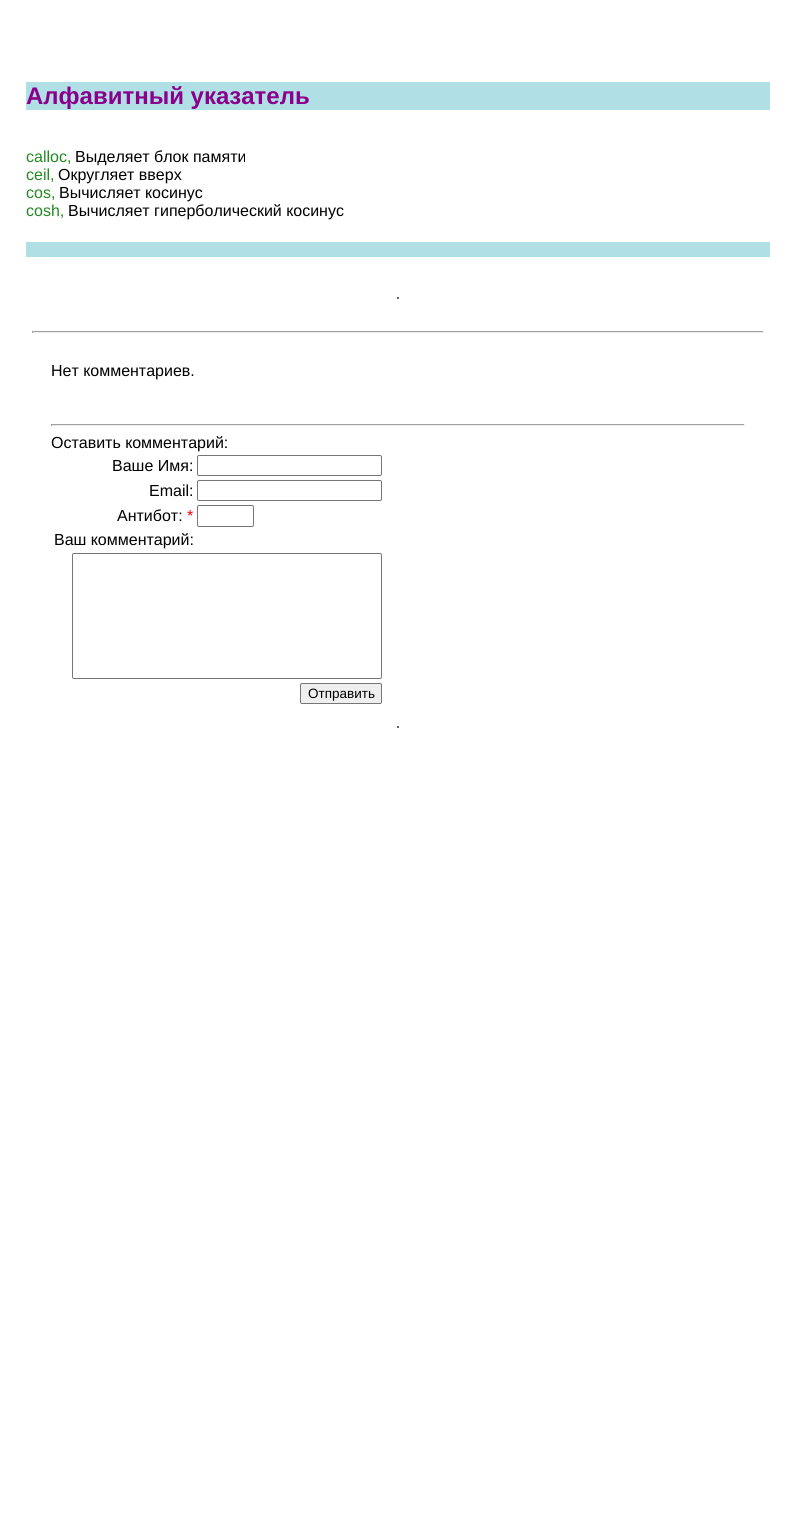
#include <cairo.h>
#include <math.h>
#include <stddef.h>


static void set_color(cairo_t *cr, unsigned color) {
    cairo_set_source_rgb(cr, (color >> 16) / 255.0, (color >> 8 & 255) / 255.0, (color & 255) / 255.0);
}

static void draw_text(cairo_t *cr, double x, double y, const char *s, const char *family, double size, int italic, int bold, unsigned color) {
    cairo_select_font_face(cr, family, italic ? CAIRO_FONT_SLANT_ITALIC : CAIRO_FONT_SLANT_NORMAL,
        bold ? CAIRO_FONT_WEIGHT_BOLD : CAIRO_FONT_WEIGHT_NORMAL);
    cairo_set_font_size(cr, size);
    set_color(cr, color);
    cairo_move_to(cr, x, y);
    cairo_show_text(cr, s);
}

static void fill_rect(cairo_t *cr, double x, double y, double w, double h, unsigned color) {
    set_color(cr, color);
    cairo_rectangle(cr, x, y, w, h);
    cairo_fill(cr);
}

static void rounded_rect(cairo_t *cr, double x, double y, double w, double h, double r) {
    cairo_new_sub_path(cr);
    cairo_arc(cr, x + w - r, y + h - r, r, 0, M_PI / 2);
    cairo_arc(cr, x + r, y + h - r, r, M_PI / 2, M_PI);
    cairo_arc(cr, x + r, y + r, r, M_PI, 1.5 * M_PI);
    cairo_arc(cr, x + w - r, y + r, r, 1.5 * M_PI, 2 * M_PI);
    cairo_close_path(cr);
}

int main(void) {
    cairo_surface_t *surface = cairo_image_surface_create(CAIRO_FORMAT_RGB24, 795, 1532);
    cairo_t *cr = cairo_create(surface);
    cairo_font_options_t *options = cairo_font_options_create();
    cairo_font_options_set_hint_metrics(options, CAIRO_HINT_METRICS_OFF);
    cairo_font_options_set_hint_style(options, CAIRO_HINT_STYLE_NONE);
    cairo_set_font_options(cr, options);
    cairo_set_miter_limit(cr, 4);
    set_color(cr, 0xFFFFFF);
    cairo_paint(cr);
    fill_rect(cr, 26, 82, 744, 28, 0xB0E0E6);
    draw_text(cr, 26, 104, "Алфавитный указатель", "Liberation Sans", 24, 0, 1, 0x8B008B);
    draw_text(cr, 26, 162, "calloc,", "Liberation Sans", 16, 0, 0, 0x228B22);
    draw_text(cr, 75, 162, "Выделяет блок памяти", "Liberation Sans", 16, 0, 0, 0x000000);
    draw_text(cr, 26, 180, "ceil,", "Liberation Sans", 16, 0, 0, 0x228B22);
    draw_text(cr, 58, 180, "Округляет вверх", "Liberation Sans", 16, 0, 0, 0x000000);
    draw_text(cr, 26, 198, "cos,", "Liberation Sans", 16, 0, 0, 0x228B22);
    draw_text(cr, 59, 198, "Вычисляет косинус", "Liberation Sans", 16, 0, 0, 0x000000);
    draw_text(cr, 26, 216, "cosh,", "Liberation Sans", 16, 0, 0, 0x228B22);
    draw_text(cr, 68, 216, "Вычисляет гиперболический косинус", "Liberation Sans", 16, 0, 0, 0x000000);
    fill_rect(cr, 26, 242, 744, 15, 0xB0E0E6);
    fill_rect(cr, 397, 297, 2, 2, 0x666666);
    fill_rect(cr, 32, 331, 732, 1, 0x9F9F9F);
    fill_rect(cr, 763, 331, 1, 2, 0xEEEEEE);
    fill_rect(cr, 32, 332, 732, 1, 0xEEEEEE);
    fill_rect(cr, 32, 331, 1, 2, 0x9F9F9F);
    draw_text(cr, 51, 376, "Нет комментариев.", "Liberation Sans", 16, 0, 0, 0x000000);
    fill_rect(cr, 51, 424, 694, 1, 0x9F9F9F);
    fill_rect(cr, 744, 424, 1, 2, 0xEEEEEE);
    fill_rect(cr, 51, 425, 694, 1, 0xEEEEEE);
    fill_rect(cr, 51, 424, 1, 2, 0x9F9F9F);
    draw_text(cr, 51, 448, "Оставить комментарий:", "Liberation Sans", 16, 0, 0, 0x000000);
    draw_text(cr, 112, 471, "Ваше Имя:", "Liberation Sans", 16, 0, 0, 0x000000);
    rounded_rect(cr, 197.5, 455.5, 184, 20, 1.5);
    set_color(cr, 0x767676);
    cairo_set_line_width(cr, 1);
    cairo_stroke(cr);
    draw_text(cr, 149, 496, "Email:", "Liberation Sans", 16, 0, 0, 0x000000);
    rounded_rect(cr, 197.5, 480.5, 184, 20, 1.5);
    set_color(cr, 0x767676);
    cairo_stroke(cr);
    draw_text(cr, 117, 521, "Антибот:", "Liberation Sans", 16, 0, 0, 0x000000);
    draw_text(cr, 187, 521, "*", "Liberation Sans", 16, 0, 0, 0xFF0000);
    rounded_rect(cr, 197.5, 505.5, 56, 21, 1.5);
    set_color(cr, 0x767676);
    cairo_stroke(cr);
    draw_text(cr, 54, 545, "Ваш комментарий:", "Liberation Sans", 16, 0, 0, 0x000000);
    rounded_rect(cr, 72.5, 553.5, 309, 125, 1.5);
    set_color(cr, 0x767676);
    cairo_stroke(cr);
    set_color(cr, 0xEFEFEF);
    rounded_rect(cr, 300.5, 683.5, 81, 20, 1.5);
    cairo_fill_preserve(cr);
    set_color(cr, 0x767676);
    cairo_stroke(cr);
    draw_text(cr, 308, 698, "Отправить", "Liberation Sans", 13.5, 0, 0, 0x000000);
    fill_rect(cr, 397, 726, 2, 2, 0x666666);
    cairo_surface_write_to_png(surface, "output.png");
    cairo_font_options_destroy(options);
    cairo_destroy(cr);
    cairo_surface_destroy(surface);
    return 0;
}
